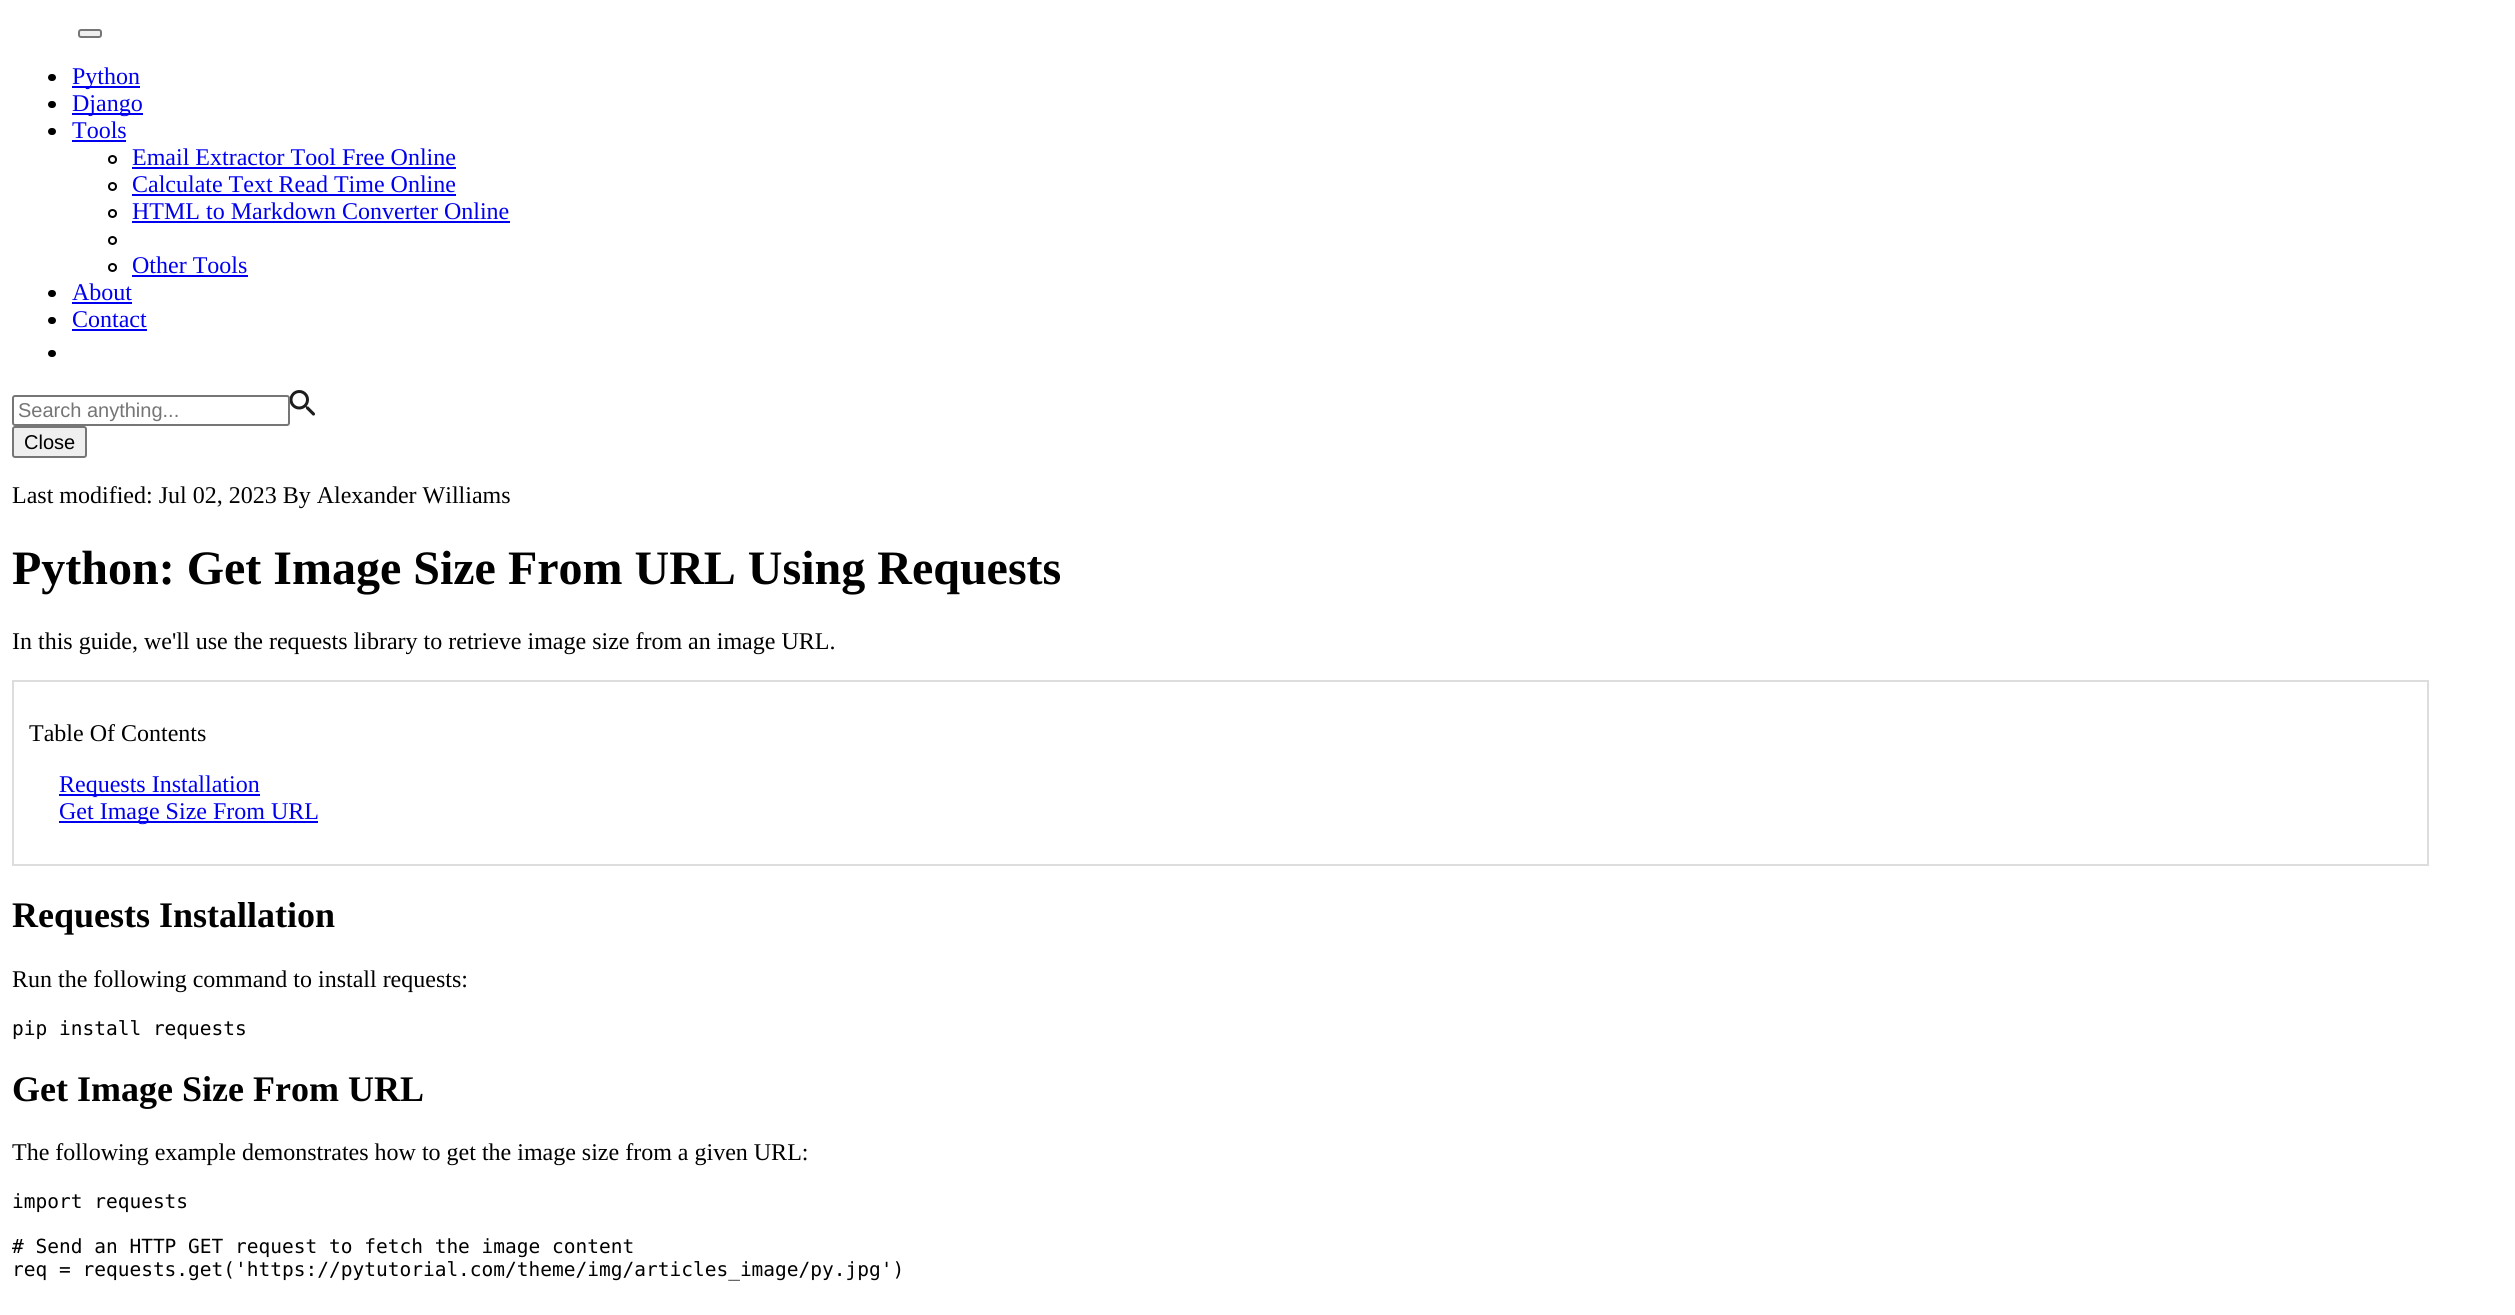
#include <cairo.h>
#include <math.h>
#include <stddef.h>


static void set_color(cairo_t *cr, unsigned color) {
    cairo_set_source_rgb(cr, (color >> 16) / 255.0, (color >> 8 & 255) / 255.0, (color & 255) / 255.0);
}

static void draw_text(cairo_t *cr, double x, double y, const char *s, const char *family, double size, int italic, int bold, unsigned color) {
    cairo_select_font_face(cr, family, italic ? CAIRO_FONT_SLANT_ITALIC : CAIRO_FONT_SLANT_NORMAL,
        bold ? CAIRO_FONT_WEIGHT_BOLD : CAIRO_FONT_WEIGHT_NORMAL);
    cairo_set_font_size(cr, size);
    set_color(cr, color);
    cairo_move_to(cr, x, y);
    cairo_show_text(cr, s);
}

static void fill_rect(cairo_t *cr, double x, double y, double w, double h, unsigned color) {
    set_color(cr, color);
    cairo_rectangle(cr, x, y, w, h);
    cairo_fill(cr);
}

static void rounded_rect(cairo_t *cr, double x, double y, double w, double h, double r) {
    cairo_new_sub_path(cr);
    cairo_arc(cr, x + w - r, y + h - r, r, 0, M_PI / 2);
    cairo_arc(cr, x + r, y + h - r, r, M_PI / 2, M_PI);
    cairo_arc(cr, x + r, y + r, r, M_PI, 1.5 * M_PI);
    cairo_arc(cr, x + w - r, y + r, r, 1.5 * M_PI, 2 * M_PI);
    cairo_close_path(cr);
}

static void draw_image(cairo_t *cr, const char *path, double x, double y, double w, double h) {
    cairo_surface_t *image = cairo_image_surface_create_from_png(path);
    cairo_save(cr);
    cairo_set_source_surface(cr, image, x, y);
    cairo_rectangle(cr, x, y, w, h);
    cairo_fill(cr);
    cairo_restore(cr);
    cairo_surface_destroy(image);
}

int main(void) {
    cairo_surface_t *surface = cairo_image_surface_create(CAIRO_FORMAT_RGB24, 2515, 1315);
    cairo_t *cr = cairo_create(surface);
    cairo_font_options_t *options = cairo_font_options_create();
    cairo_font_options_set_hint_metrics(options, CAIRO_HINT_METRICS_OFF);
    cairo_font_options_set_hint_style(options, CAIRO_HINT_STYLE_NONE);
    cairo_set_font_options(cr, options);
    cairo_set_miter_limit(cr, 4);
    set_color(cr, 0xFFFFFF);
    cairo_paint(cr);
    set_color(cr, 0xEFEFEF);
    rounded_rect(cr, 79, 30, 22, 7, 2);
    cairo_fill_preserve(cr);
    set_color(cr, 0x767676);
    cairo_stroke(cr);
    set_color(cr, 0x000000);
    rounded_rect(cr, 48, 74, 8, 7, 3.5);
    cairo_fill(cr);
    fill_rect(cr, 72, 86, 68, 2, 0x0000EE);
    draw_text(cr, 72, 84, "Python", "Liberation Serif", 24, 0, 0, 0x0000EE);
    set_color(cr, 0x000000);
    rounded_rect(cr, 48, 101, 8, 7, 3.5);
    cairo_fill(cr);
    fill_rect(cr, 72, 113, 71, 2, 0x0000EE);
    draw_text(cr, 72, 111, "Django", "Liberation Serif", 24, 0, 0, 0x0000EE);
    set_color(cr, 0x000000);
    rounded_rect(cr, 48, 128, 8, 7, 3.5);
    cairo_fill(cr);
    draw_text(cr, 72, 138, "Tools", "Liberation Serif", 24, 0, 0, 0x0000EE);
    fill_rect(cr, 72, 140, 54, 2, 0x0000EE);
    cairo_new_path(cr);
    cairo_arc(cr, 112.5, 159.5, 3.5, 0, 2 * M_PI);
    set_color(cr, 0x000000);
    cairo_stroke(cr);
    draw_text(cr, 132, 165, "Email Extractor Tool Free Online", "Liberation Serif", 24, 0, 0, 0x0000EE);
    fill_rect(cr, 132, 167, 324, 2, 0x0000EE);
    cairo_new_path(cr);
    cairo_arc(cr, 112.5, 186.5, 3.5, 0, 2 * M_PI);
    set_color(cr, 0x000000);
    cairo_stroke(cr);
    draw_text(cr, 132, 192, "Calculate Text Read Time Online", "Liberation Serif", 24, 0, 0, 0x0000EE);
    fill_rect(cr, 132, 194, 324, 2, 0x0000EE);
    cairo_new_path(cr);
    cairo_arc(cr, 112.5, 213.5, 3.5, 0, 2 * M_PI);
    set_color(cr, 0x000000);
    cairo_stroke(cr);
    draw_text(cr, 132, 219, "HTML to Markdown Converter Online", "Liberation Serif", 24, 0, 0, 0x0000EE);
    fill_rect(cr, 132, 221, 378, 2, 0x0000EE);
    cairo_new_path(cr);
    cairo_arc(cr, 112.5, 240.5, 3.5, 0, 2 * M_PI);
    set_color(cr, 0x000000);
    cairo_stroke(cr);
    cairo_arc(cr, 112.5, 267.5, 3.5, 0, 2 * M_PI);
    cairo_stroke(cr);
    draw_text(cr, 132, 273, "Other Tools", "Liberation Serif", 24, 0, 0, 0x0000EE);
    fill_rect(cr, 132, 275, 116, 2, 0x0000EE);
    set_color(cr, 0x000000);
    rounded_rect(cr, 48, 290, 8, 7, 3.5);
    cairo_fill(cr);
    draw_text(cr, 72, 300, "About", "Liberation Serif", 24, 0, 0, 0x0000EE);
    fill_rect(cr, 72, 302, 60, 2, 0x0000EE);
    set_color(cr, 0x000000);
    rounded_rect(cr, 48, 317, 8, 7, 3.5);
    cairo_fill(cr);
    draw_text(cr, 72, 327, "Contact", "Liberation Serif", 24, 0, 0, 0x0000EE);
    fill_rect(cr, 72, 329, 75, 2, 0x0000EE);
    set_color(cr, 0x000000);
    rounded_rect(cr, 48, 350, 8, 7, 3.5);
    cairo_fill(cr);
    rounded_rect(cr, 13, 396, 276, 29, 2);
    set_color(cr, 0x767676);
    cairo_stroke(cr);
    draw_text(cr, 18, 417, "Search anything...", "Liberation Sans", 20, 0, 0, 0x757575);
    draw_image(cr, "assets/img1.png", 290, 390, 25, 26);
    set_color(cr, 0xEFEFEF);
    rounded_rect(cr, 13, 427, 73, 30, 2);
    cairo_fill_preserve(cr);
    set_color(cr, 0x767676);
    cairo_stroke(cr);
    draw_text(cr, 24, 449, "Close", "Liberation Sans", 20, 0, 0, 0x000000);
    draw_text(cr, 12, 503, "Last modified: Jul 02, 2023 By Alexander Williams", "Liberation Serif", 24, 0, 0, 0x000000);
    draw_text(cr, 12, 584, "Python: Get Image Size From URL Using Requests", "Liberation Serif", 48, 0, 1, 0x000000);
    draw_text(cr, 12, 649, "In this guide, we'll use the requests library to retrieve image size from an image URL.", "Liberation Serif", 24, 0, 0, 0x000000);
    cairo_rectangle(cr, 13, 681, 2415, 184);
    set_color(cr, 0xDDDDDD);
    cairo_stroke(cr);
    draw_text(cr, 29, 741, "Table Of Contents", "Liberation Serif", 24, 0, 0, 0x000000);
    fill_rect(cr, 59, 794, 201, 2, 0x0000EE);
    draw_text(cr, 59, 792, "Requests Installation", "Liberation Serif", 24, 0, 0, 0x0000EE);
    fill_rect(cr, 59, 821, 259, 2, 0x0000EE);
    draw_text(cr, 59, 819, "Get Image Size From URL", "Liberation Serif", 24, 0, 0, 0x0000EE);
    draw_text(cr, 12, 927, "Requests Installation", "Liberation Serif", 36, 0, 1, 0x000000);
    draw_text(cr, 12, 987, "Run the following command to install requests:", "Liberation Serif", 24, 0, 0, 0x000000);
    draw_text(cr, 12, 1035, "pip install requests", "DejaVu Sans Mono", 19.5, 0, 0, 0x000000);
    draw_text(cr, 12, 1101, "Get Image Size From URL", "Liberation Serif", 36, 0, 1, 0x000000);
    draw_text(cr, 12, 1160, "The following example demonstrates how to get the image size from a given URL:", "Liberation Serif", 24, 0, 0, 0x000000);
    draw_text(cr, 12, 1208, "import requests", "DejaVu Sans Mono", 19.5, 0, 0, 0x000000);
    draw_text(cr, 12, 1253, "# Send an HTTP GET request to fetch the image content", "DejaVu Sans Mono", 19.5, 0, 0, 0x000000);
    draw_text(cr, 12, 1276, "req = requests.get('https://pytutorial.com/theme/img/articles_image/py.jpg')", "DejaVu Sans Mono", 19.5, 0, 0, 0x000000);
    cairo_surface_write_to_png(surface, "output.png");
    cairo_font_options_destroy(options);
    cairo_destroy(cr);
    cairo_surface_destroy(surface);
    return 0;
}
